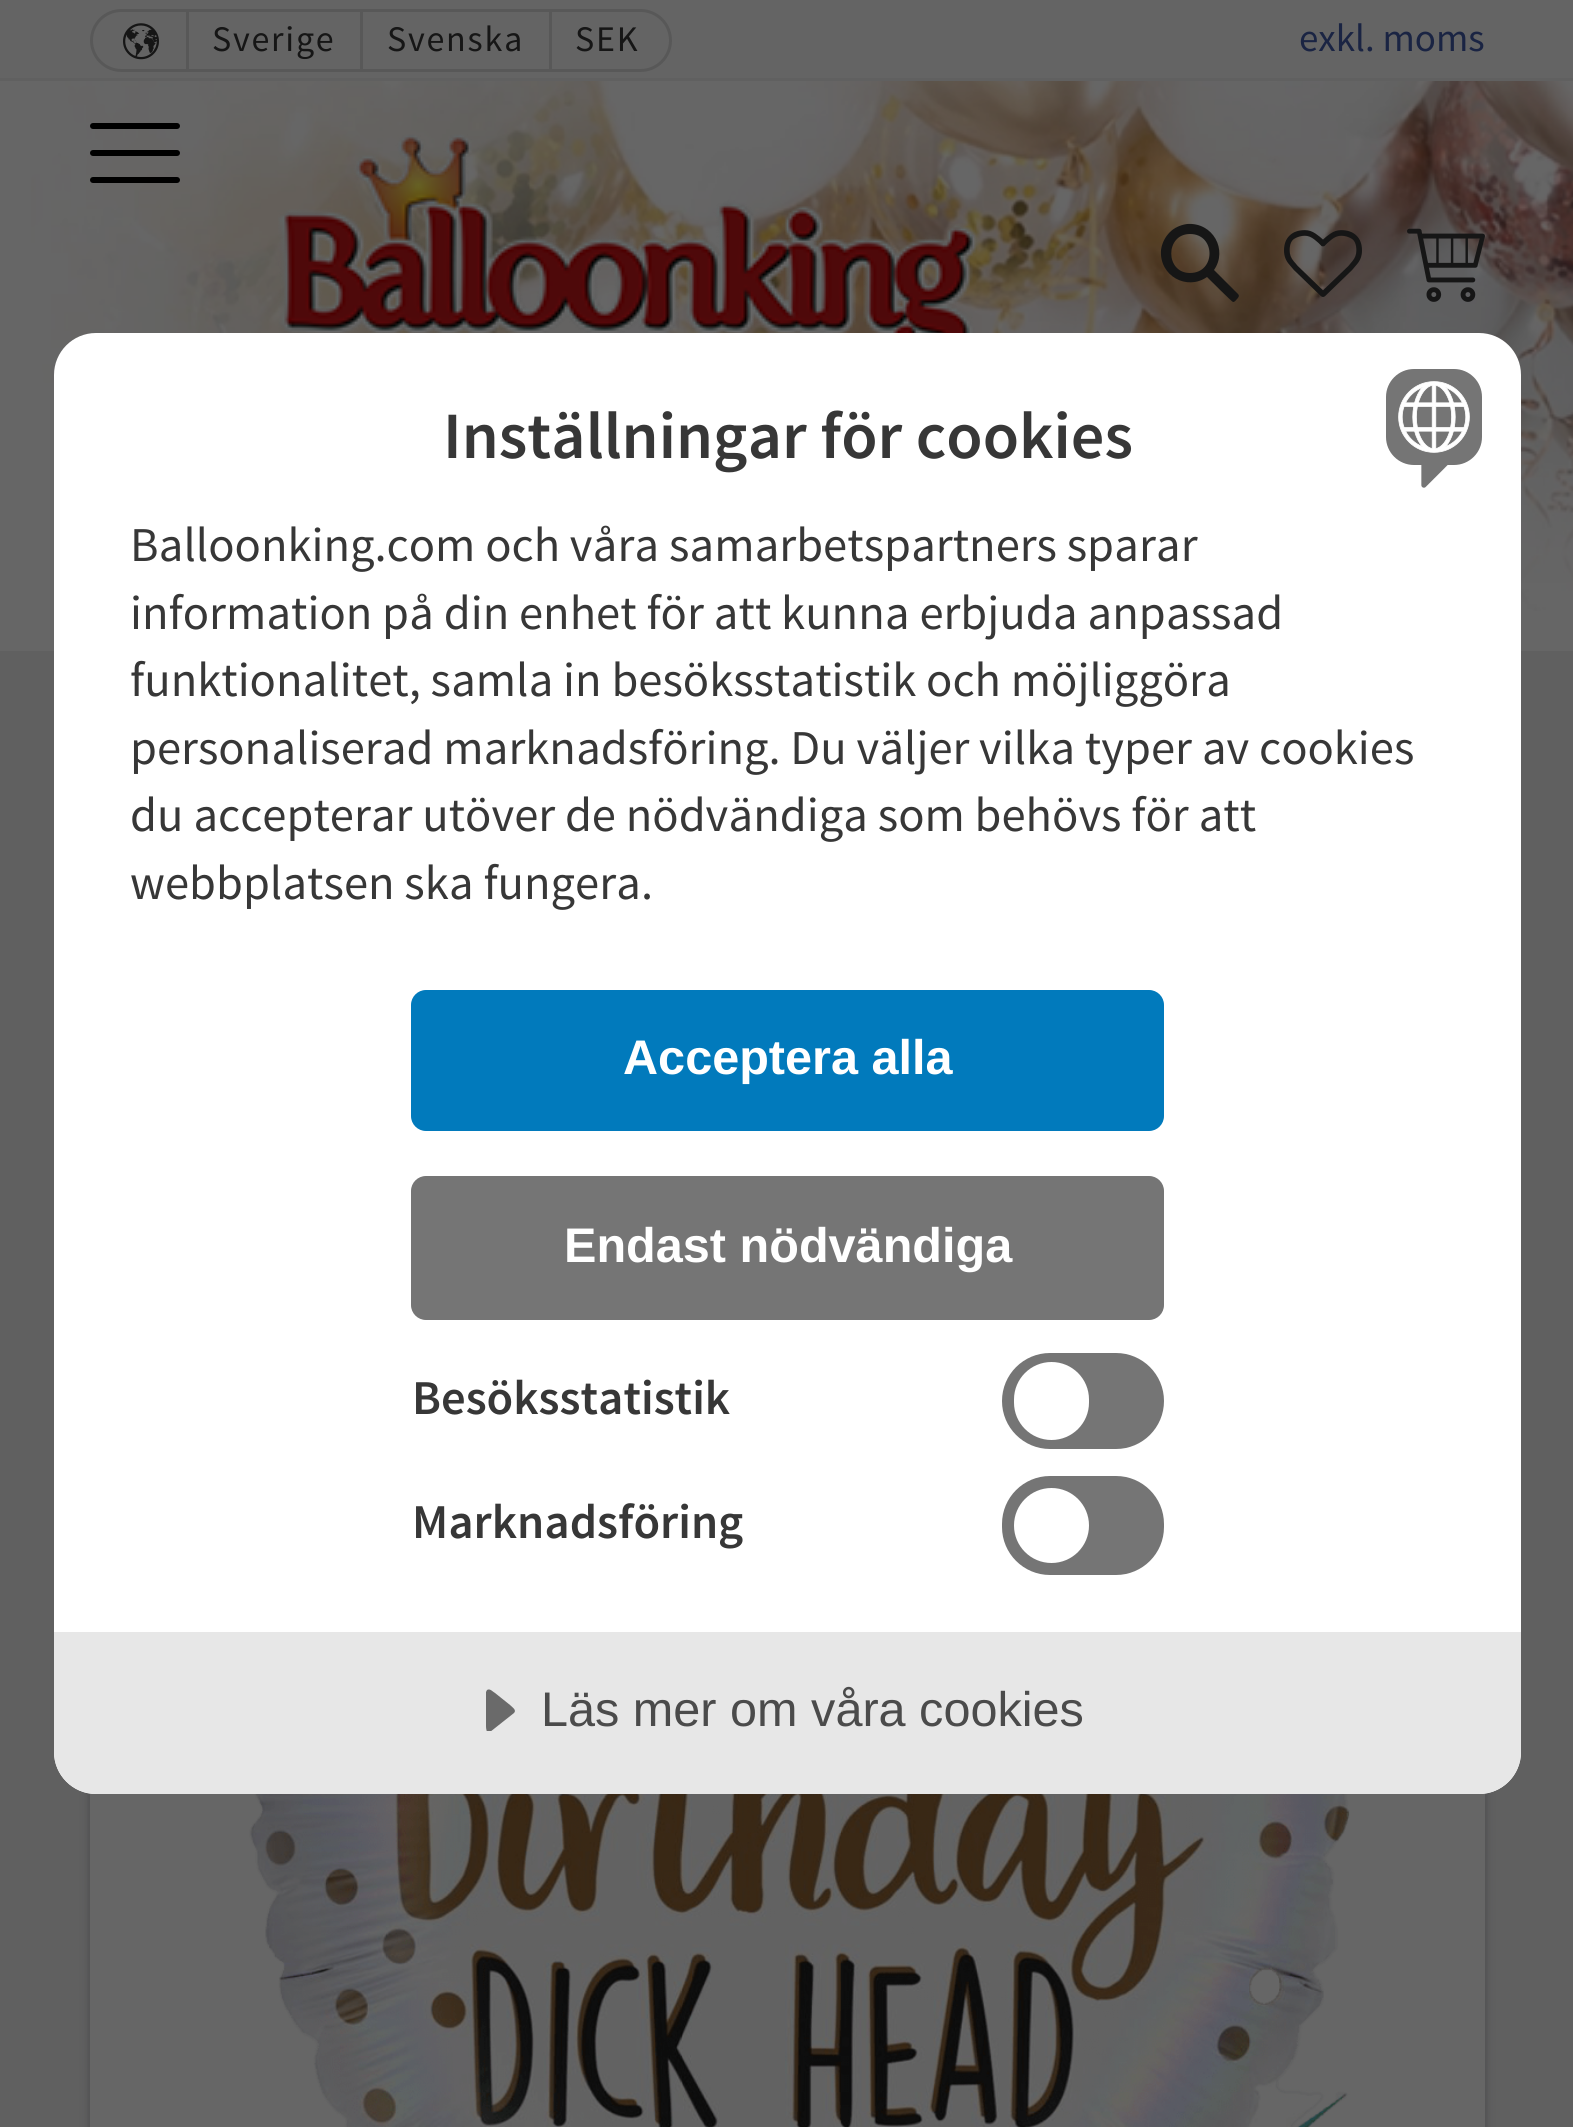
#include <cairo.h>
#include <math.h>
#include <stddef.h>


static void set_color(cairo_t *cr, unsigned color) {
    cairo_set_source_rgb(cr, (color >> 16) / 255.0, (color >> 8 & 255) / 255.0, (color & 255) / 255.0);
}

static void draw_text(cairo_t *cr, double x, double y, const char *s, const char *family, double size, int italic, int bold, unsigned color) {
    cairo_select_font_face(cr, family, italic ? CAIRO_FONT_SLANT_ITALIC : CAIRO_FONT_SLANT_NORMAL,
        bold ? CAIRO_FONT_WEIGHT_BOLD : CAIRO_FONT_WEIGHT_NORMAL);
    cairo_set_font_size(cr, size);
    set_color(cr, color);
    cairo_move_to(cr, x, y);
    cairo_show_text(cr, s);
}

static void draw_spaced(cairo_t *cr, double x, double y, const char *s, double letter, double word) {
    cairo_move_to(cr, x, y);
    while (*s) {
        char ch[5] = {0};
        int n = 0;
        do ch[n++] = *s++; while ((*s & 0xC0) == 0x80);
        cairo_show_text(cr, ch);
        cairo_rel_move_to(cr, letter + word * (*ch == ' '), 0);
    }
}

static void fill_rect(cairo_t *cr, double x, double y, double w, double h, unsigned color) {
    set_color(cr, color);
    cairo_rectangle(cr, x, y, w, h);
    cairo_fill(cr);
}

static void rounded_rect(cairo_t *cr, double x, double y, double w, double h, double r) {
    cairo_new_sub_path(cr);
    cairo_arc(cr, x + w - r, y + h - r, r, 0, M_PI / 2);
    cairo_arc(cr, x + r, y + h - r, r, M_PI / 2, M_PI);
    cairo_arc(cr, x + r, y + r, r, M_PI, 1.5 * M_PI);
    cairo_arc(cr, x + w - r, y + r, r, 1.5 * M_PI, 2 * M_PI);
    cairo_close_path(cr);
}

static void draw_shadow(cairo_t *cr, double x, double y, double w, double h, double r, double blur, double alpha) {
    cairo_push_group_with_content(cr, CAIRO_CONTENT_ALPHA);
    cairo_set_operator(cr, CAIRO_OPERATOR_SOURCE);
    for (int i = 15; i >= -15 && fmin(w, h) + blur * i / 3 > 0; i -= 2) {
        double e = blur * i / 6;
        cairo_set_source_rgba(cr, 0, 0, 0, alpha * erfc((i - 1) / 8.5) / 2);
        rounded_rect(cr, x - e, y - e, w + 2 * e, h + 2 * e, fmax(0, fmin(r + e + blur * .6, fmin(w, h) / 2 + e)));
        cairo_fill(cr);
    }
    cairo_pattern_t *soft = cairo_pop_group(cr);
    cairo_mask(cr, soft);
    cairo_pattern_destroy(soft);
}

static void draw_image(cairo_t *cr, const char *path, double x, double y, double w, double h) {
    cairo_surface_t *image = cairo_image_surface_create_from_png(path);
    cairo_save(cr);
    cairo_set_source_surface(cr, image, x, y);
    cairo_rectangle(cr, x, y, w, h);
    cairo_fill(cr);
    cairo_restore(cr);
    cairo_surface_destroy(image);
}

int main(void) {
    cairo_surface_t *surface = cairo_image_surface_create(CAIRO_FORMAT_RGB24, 1573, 2127);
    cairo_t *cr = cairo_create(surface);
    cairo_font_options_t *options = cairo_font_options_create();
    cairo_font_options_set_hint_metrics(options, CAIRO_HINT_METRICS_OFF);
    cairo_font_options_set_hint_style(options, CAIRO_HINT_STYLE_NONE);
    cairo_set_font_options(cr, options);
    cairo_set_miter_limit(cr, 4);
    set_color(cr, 0x606060);
    cairo_paint(cr);
    fill_rect(cr, 0, 81, 1573, 570, 0x666666);
    draw_image(cr, "assets/img1.png", 31, 81, 1542, 530);
    fill_rect(cr, 0, 0, 1573, 78, 0x646464);
    rounded_rect(cr, 91.5, 10.5, 579, 60, 30);
    set_color(cr, 0x585858);
    cairo_set_line_width(cr, 3);
    cairo_stroke(cr);
    draw_image(cr, "assets/img2.png", 123, 23, 36, 37);
    fill_rect(cr, 186, 12, 3, 57, 0x585858);
    cairo_select_font_face(cr, "Source Sans Pro", CAIRO_FONT_SLANT_NORMAL, CAIRO_FONT_WEIGHT_NORMAL);
    cairo_set_font_size(cr, 36);
    set_color(cr, 0x161616);
    draw_spaced(cr, 212, 51, "Sverige", 1.75, 0);
    fill_rect(cr, 360, 12, 3, 57, 0x585858);
    set_color(cr, 0x161616);
    draw_spaced(cr, 387, 51, "Svenska", 1.75, 0);
    fill_rect(cr, 549, 12, 3, 57, 0x585858);
    set_color(cr, 0x161616);
    draw_spaced(cr, 575, 51, "SEK", 1.75, 0);
    draw_text(cr, 1299, 51, "exkl. moms", "Source Sans Pro", 39, 0, 0, 0x1A2443);
    draw_image(cr, "assets/img3.png", 278, 134, 701, 199);
    set_color(cr, 0x161616);
    cairo_new_path(cr);
    cairo_move_to(cr, 1238, 294);
    cairo_curve_to(cr, 1240, 296, 1238, 298, 1237, 299);
    cairo_curve_to(cr, 1236, 300, 1235, 302, 1233, 302);
    cairo_curve_to(cr, 1232, 302, 1209, 279, 1207, 277);
    cairo_curve_to(cr, 1187, 291, 1159, 276, 1161, 250);
    cairo_curve_to(cr, 1162, 243, 1165, 237, 1170, 232);
    cairo_curve_to(cr, 1174, 228, 1180, 225, 1187, 224);
    cairo_curve_to(cr, 1213, 222, 1228, 250, 1214, 270);
    cairo_close_path(cr);
    cairo_move_to(cr, 1190, 234);
    cairo_curve_to(cr, 1165, 234, 1165, 273, 1190, 273);
    cairo_curve_to(cr, 1216, 273, 1216, 234, 1190, 234);
    cairo_close_path(cr);
    cairo_fill(cr);
    draw_image(cr, "assets/img4.png", 1284, 230, 78, 67);
    draw_image(cr, "assets/img5.png", 1407, 228, 78, 74);
    set_color(cr, 0x000000);
    rounded_rect(cr, 90, 150, 90, 6, 3);
    cairo_fill(cr);
    rounded_rect(cr, 90, 123, 90, 6, 3);
    cairo_fill(cr);
    rounded_rect(cr, 90, 177, 90, 6, 3);
    cairo_fill(cr);
    set_color(cr, 0x000000);
    draw_shadow(cr, 93, 1110, 1389, 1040, 9, 4.5, 0.3);
    set_color(cr, 0x141425);
    draw_shadow(cr, 93, 1113, 1389, 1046, 9, 7.5, 0.25);
    fill_rect(cr, 90, 1793, 1395, 334, 0x666666);
    draw_image(cr, "assets/img6.png", 249, 1794, 1101, 333);
    set_color(cr, 0xFFFFFF);
    rounded_rect(cr, 54, 333, 1467, 1461, 42);
    cairo_fill(cr);
    draw_text(cr, 443, 458, "Inställningar för cookies", "Source Sans Pro SemiBold", 66.2, 0, 0, 0x373737);
    draw_text(cr, 130, 561, "Balloonking.com och våra samarbetspartners sparar", "Source Sans Pro", 48.6, 0, 0, 0x373737);
    draw_text(cr, 130, 629, "information på din enhet för att kunna erbjuda anpassad", "Source Sans Pro", 48.6, 0, 0, 0x373737);
    draw_text(cr, 130, 696, "funktionalitet, samla in besöksstatistik och möjliggöra", "Source Sans Pro", 48.6, 0, 0, 0x373737);
    draw_text(cr, 130, 764, "personaliserad marknadsföring. Du väljer vilka typer av cookies", "Source Sans Pro", 48.6, 0, 0, 0x373737);
    draw_text(cr, 130, 831, "du accepterar utöver de nödvändiga som behövs för att", "Source Sans Pro", 48.6, 0, 0, 0x373737);
    draw_text(cr, 130, 899, "webbplatsen ska fungera.", "Source Sans Pro", 48.6, 0, 0, 0x373737);
    set_color(cr, 0x017ABC);
    rounded_rect(cr, 411, 990, 753, 141, 15);
    cairo_fill(cr);
    draw_text(cr, 623, 1074, "Acceptera alla", "Liberation Sans", 48.6, 0, 1, 0xFFFFFF);
    set_color(cr, 0x757575);
    rounded_rect(cr, 411, 1176, 753, 144, 15);
    cairo_fill(cr);
    draw_text(cr, 564, 1262, "Endast nödvändiga", "Liberation Sans", 48.6, 0, 1, 0xFFFFFF);
    draw_text(cr, 412, 1414, "Besöksstatistik", "Source Sans Pro SemiBold", 48.6, 0, 0, 0x373737);
    set_color(cr, 0x757575);
    rounded_rect(cr, 1002, 1353, 162, 96, 48);
    cairo_fill(cr);
    set_color(cr, 0xFFFFFF);
    rounded_rect(cr, 1014, 1362, 75, 78, 37.5);
    cairo_fill(cr);
    draw_text(cr, 412, 1538, "Marknadsföring", "Source Sans Pro SemiBold", 48.6, 0, 0, 0x373737);
    set_color(cr, 0x757575);
    rounded_rect(cr, 1002, 1476, 162, 99, 48);
    cairo_fill(cr);
    set_color(cr, 0xFFFFFF);
    cairo_arc(cr, 1051.5, 1525.5, 37.5, 0, 2 * M_PI);
    cairo_fill(cr);
    draw_image(cr, "assets/img7.png", 1386, 369, 96, 119);
    set_color(cr, 0xE7E7E7);
    cairo_new_path(cr);
    cairo_move_to(cr, 54, 1632);
    cairo_line_to(cr, 1521, 1632);
    cairo_line_to(cr, 1521, 1752);
    cairo_curve_to(cr, 1521, 1775, 1502, 1794, 1479, 1794);
    cairo_line_to(cr, 96, 1794);
    cairo_curve_to(cr, 73, 1794, 54, 1775, 54, 1752);
    cairo_close_path(cr);
    cairo_fill(cr);
    cairo_save(cr);
    cairo_rectangle(cr, 486, 1689, 30, 42);
    cairo_clip(cr);
    set_color(cr, 0x6A6A6A);
    cairo_new_path(cr);
    cairo_move_to(cr, 514, 1713);
    cairo_line_to(cr, 490, 1732);
    cairo_curve_to(cr, 485, 1735, 486, 1724, 486, 1717);
    cairo_line_to(cr, 486, 1692);
    cairo_line_to(cr, 487, 1690);
    cairo_curve_to(cr, 490, 1688, 493, 1692, 495, 1693);
    cairo_line_to(cr, 510, 1705);
    cairo_curve_to(cr, 512, 1707, 517, 1710, 514, 1713);
    cairo_close_path(cr);
    cairo_fill(cr);
    cairo_restore(cr);
    draw_text(cr, 541, 1726, "Läs mer om våra cookies", "Liberation Sans", 48.6, 0, 0, 0x4B4B4B);
    cairo_surface_write_to_png(surface, "output.png");
    cairo_font_options_destroy(options);
    cairo_destroy(cr);
    cairo_surface_destroy(surface);
    return 0;
}
